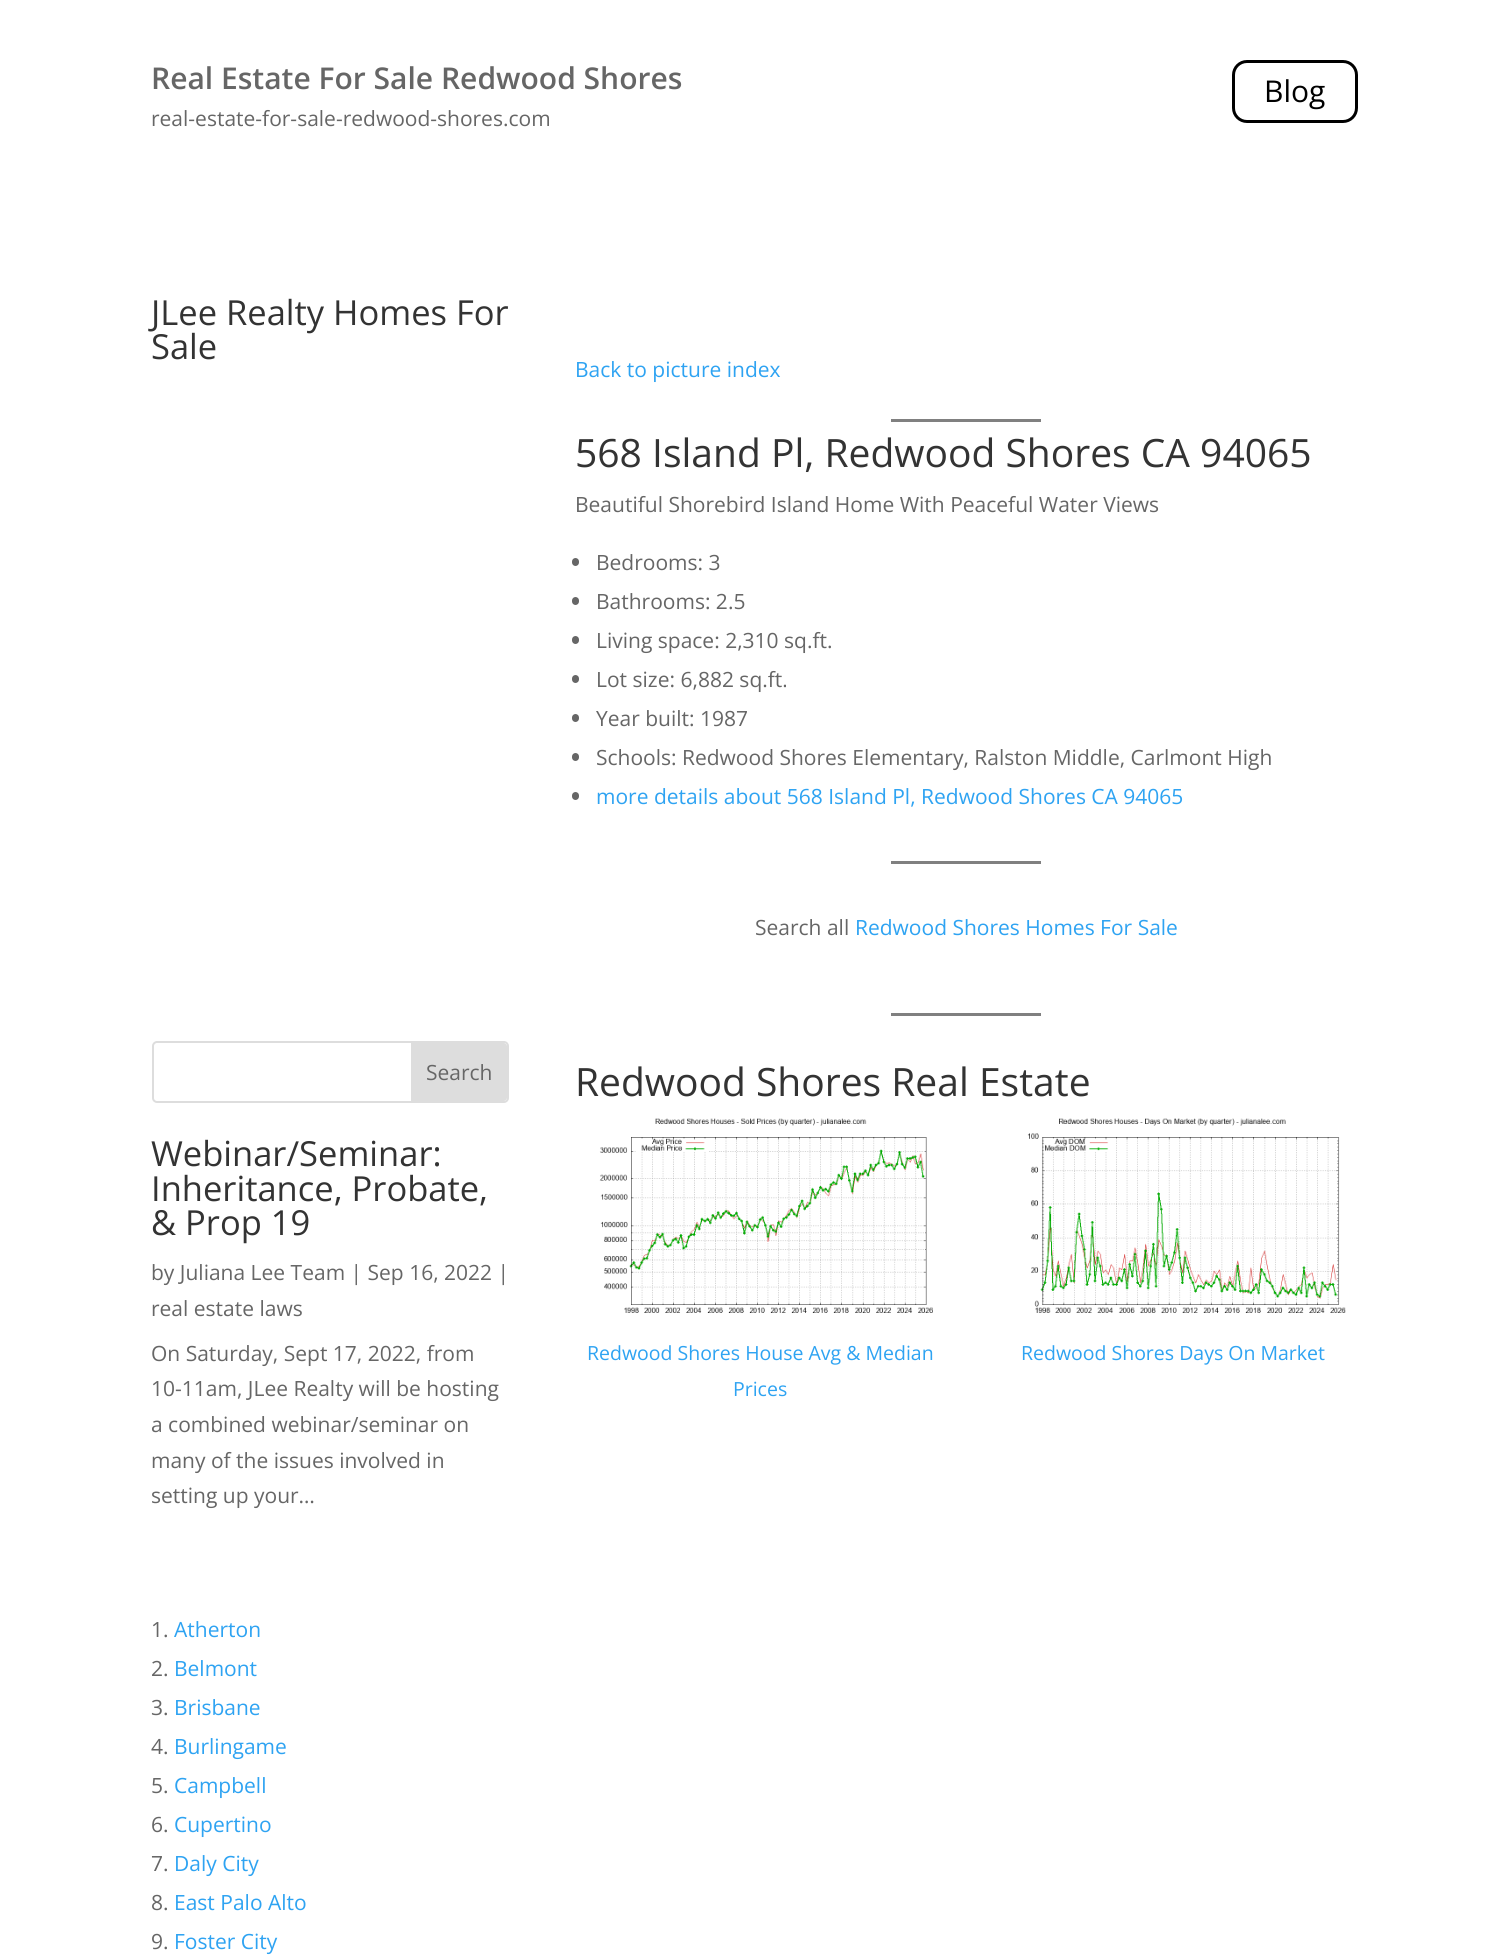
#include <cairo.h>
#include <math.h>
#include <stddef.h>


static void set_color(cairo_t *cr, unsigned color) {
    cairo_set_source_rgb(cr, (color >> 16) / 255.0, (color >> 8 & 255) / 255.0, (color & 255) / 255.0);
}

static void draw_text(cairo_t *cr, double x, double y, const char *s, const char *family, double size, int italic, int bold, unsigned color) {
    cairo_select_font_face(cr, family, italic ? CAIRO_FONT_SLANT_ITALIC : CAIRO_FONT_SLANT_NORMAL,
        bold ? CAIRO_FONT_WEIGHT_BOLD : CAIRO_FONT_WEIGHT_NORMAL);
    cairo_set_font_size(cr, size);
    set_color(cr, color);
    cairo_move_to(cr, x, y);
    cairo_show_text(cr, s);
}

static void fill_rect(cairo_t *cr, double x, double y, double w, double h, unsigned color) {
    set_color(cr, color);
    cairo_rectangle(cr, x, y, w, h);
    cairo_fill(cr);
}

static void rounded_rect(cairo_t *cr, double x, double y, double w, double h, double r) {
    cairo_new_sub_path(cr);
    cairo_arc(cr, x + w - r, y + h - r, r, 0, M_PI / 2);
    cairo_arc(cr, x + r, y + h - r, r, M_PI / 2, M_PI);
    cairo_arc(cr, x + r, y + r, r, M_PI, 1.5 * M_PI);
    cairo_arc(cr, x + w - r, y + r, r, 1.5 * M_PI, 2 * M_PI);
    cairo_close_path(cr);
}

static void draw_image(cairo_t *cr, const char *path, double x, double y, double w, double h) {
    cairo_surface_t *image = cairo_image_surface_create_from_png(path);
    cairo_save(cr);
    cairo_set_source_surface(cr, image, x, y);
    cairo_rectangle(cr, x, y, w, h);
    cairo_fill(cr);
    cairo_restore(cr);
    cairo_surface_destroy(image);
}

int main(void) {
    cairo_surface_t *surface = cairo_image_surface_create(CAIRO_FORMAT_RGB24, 1508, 1957);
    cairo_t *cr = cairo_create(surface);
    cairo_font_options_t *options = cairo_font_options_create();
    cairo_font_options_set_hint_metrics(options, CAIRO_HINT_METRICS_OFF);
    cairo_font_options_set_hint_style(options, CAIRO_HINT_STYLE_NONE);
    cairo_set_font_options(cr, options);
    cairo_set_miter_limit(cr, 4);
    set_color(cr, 0xFFFFFF);
    cairo_paint(cr);
    draw_text(cr, 151, 89, "Real Estate For Sale Redwood Shores", "Open Sans SemiBold", 30, 0, 0, 0x666666);
    draw_text(cr, 151, 126, "real-estate-for-sale-redwood-shores.com", "Open Sans", 21, 0, 0, 0x666666);
    rounded_rect(cr, 1233.5, 61.5, 123, 60, 13.5);
    set_color(cr, 0x000000);
    cairo_set_line_width(cr, 3);
    cairo_stroke(cr);
    draw_text(cr, 1264, 102, "Blog", "Open Sans", 30, 0, 0, 0x000000);
    draw_text(cr, 151, 325, "JLee Realty Homes For", "Open Sans", 34.5, 0, 0, 0x333333);
    draw_text(cr, 151, 359, "Sale", "Open Sans", 34.5, 0, 0, 0x333333);
    rounded_rect(cr, 153, 1042, 355, 60, 4);
    set_color(cr, 0xDDDDDD);
    cairo_set_line_width(cr, 2);
    cairo_stroke(cr);
    cairo_new_path(cr);
    cairo_move_to(cr, 411, 1043);
    cairo_line_to(cr, 504, 1043);
    cairo_curve_to(cr, 505.5, 1043, 507, 1044.5, 507, 1046);
    cairo_line_to(cr, 507, 1098);
    cairo_curve_to(cr, 507, 1099.5, 505.5, 1101, 504, 1101);
    cairo_line_to(cr, 411, 1101);
    cairo_close_path(cr);
    cairo_fill(cr);
    draw_text(cr, 426, 1080, "Search", "Open Sans", 21, 0, 0, 0x666666);
    draw_text(cr, 151, 1166, "Webinar/Seminar:", "Open Sans", 34.5, 0, 0, 0x333333);
    draw_text(cr, 151, 1201, "Inheritance, Probate,", "Open Sans", 34.5, 0, 0, 0x333333);
    draw_text(cr, 151, 1235, "& Prop 19", "Open Sans", 34.5, 0, 0, 0x333333);
    draw_text(cr, 151, 1280, "by Juliana Lee Team | Sep 16, 2022 |", "Open Sans", 21, 0, 0, 0x666666);
    draw_text(cr, 151, 1316, "real estate laws", "Open Sans", 21, 0, 0, 0x666666);
    draw_text(cr, 151, 1361, "On Saturday, Sept 17, 2022, from", "Open Sans", 21, 0, 0, 0x666666);
    draw_text(cr, 151, 1396, "10-11am, JLee Realty will be hosting", "Open Sans", 21, 0, 0, 0x666666);
    draw_text(cr, 151, 1432, "a combined webinar/seminar on", "Open Sans", 21, 0, 0, 0x666666);
    draw_text(cr, 151, 1468, "many of the issues involved in", "Open Sans", 21, 0, 0, 0x666666);
    draw_text(cr, 151, 1503, "setting up your…", "Open Sans", 21, 0, 0, 0x666666);
    draw_text(cr, 151, 1637, "1.", "Open Sans", 21, 0, 0, 0x666666);
    draw_text(cr, 174, 1637, "Atherton", "Open Sans", 21, 0, 0, 0x2EA3F2);
    draw_text(cr, 151, 1676, "2.", "Open Sans", 21, 0, 0, 0x666666);
    draw_text(cr, 174, 1676, "Belmont", "Open Sans", 21, 0, 0, 0x2EA3F2);
    draw_text(cr, 151, 1715, "3.", "Open Sans", 21, 0, 0, 0x666666);
    draw_text(cr, 174, 1715, "Brisbane", "Open Sans", 21, 0, 0, 0x2EA3F2);
    draw_text(cr, 151, 1754, "4.", "Open Sans", 21, 0, 0, 0x666666);
    draw_text(cr, 174, 1754, "Burlingame", "Open Sans", 21, 0, 0, 0x2EA3F2);
    draw_text(cr, 151, 1793, "5.", "Open Sans", 21, 0, 0, 0x666666);
    draw_text(cr, 174, 1793, "Campbell", "Open Sans", 21, 0, 0, 0x2EA3F2);
    draw_text(cr, 151, 1832, "6.", "Open Sans", 21, 0, 0, 0x666666);
    draw_text(cr, 174, 1832, "Cupertino", "Open Sans", 21, 0, 0, 0x2EA3F2);
    draw_text(cr, 151, 1871, "7.", "Open Sans", 21, 0, 0, 0x666666);
    draw_text(cr, 174, 1871, "Daly City", "Open Sans", 21, 0, 0, 0x2EA3F2);
    draw_text(cr, 151, 1910, "8.", "Open Sans", 21, 0, 0, 0x666666);
    draw_text(cr, 174, 1910, "East Palo Alto", "Open Sans", 21, 0, 0, 0x2EA3F2);
    draw_text(cr, 151, 1949, "9.", "Open Sans", 21, 0, 0, 0x666666);
    draw_text(cr, 174, 1949, "Foster City", "Open Sans", 21, 0, 0, 0x2EA3F2);
    draw_text(cr, 575, 377, "Back to picture index", "Open Sans", 21, 0, 0, 0x2EA3F2);
    fill_rect(cr, 891, 419, 150, 3, 0x808080);
    draw_text(cr, 575, 467, "568 Island Pl, Redwood Shores CA 94065", "Open Sans", 39, 0, 0, 0x333333);
    draw_text(cr, 575, 512, "Beautiful Shorebird Island Home With Peaceful Water Views", "Open Sans", 21, 0, 0, 0x666666);
    rounded_rect(cr, 572, 558, 7, 8, 3.5);
    cairo_fill(cr);
    draw_text(cr, 596, 570, "Bedrooms: 3", "Open Sans", 21, 0, 0, 0x666666);
    rounded_rect(cr, 572, 597, 7, 8, 3.5);
    cairo_fill(cr);
    draw_text(cr, 596, 609, "Bathrooms: 2.5", "Open Sans", 21, 0, 0, 0x666666);
    rounded_rect(cr, 572, 636, 7, 8, 3.5);
    cairo_fill(cr);
    draw_text(cr, 596, 648, "Living space: 2,310 sq.ft.", "Open Sans", 21, 0, 0, 0x666666);
    rounded_rect(cr, 572, 675, 7, 8, 3.5);
    cairo_fill(cr);
    draw_text(cr, 596, 687, "Lot size: 6,882 sq.ft.", "Open Sans", 21, 0, 0, 0x666666);
    rounded_rect(cr, 572, 714, 7, 8, 3.5);
    cairo_fill(cr);
    draw_text(cr, 596, 726, "Year built: 1987", "Open Sans", 21, 0, 0, 0x666666);
    rounded_rect(cr, 572, 753, 7, 8, 3.5);
    cairo_fill(cr);
    draw_text(cr, 596, 765, "Schools: Redwood Shores Elementary, Ralston Middle, Carlmont High", "Open Sans", 21, 0, 0, 0x666666);
    rounded_rect(cr, 572, 792, 7, 8, 3.5);
    cairo_fill(cr);
    draw_text(cr, 596, 804, "more details about 568 Island Pl, Redwood Shores CA 94065", "Open Sans", 21, 0, 0, 0x2EA3F2);
    fill_rect(cr, 891, 861, 150, 3, 0x808080);
    draw_text(cr, 755, 935, "Search all", "Open Sans", 21, 0, 0, 0x666666);
    draw_text(cr, 855, 935, "Redwood Shores Homes For Sale", "Open Sans", 21, 0, 0, 0x2EA3F2);
    fill_rect(cr, 891, 1013, 150, 3, 0x808080);
    draw_text(cr, 575, 1096, "Redwood Shores Real Estate", "Open Sans", 39, 0, 0, 0x333333);
    draw_image(cr, "assets/img1.png", 599, 1118, 334, 195);
    draw_text(cr, 587, 1360, "Redwood Shores House Avg & Median", "Open Sans", 19.5, 0, 0, 0x2EA3F2);
    draw_text(cr, 733, 1396, "Prices", "Open Sans", 19.5, 0, 0, 0x2EA3F2);
    draw_image(cr, "assets/img2.png", 1027, 1118, 319, 195);
    draw_text(cr, 1021, 1360, "Redwood Shores Days On Market", "Open Sans", 19.5, 0, 0, 0x2EA3F2);
    cairo_surface_write_to_png(surface, "output.png");
    cairo_font_options_destroy(options);
    cairo_destroy(cr);
    cairo_surface_destroy(surface);
    return 0;
}
